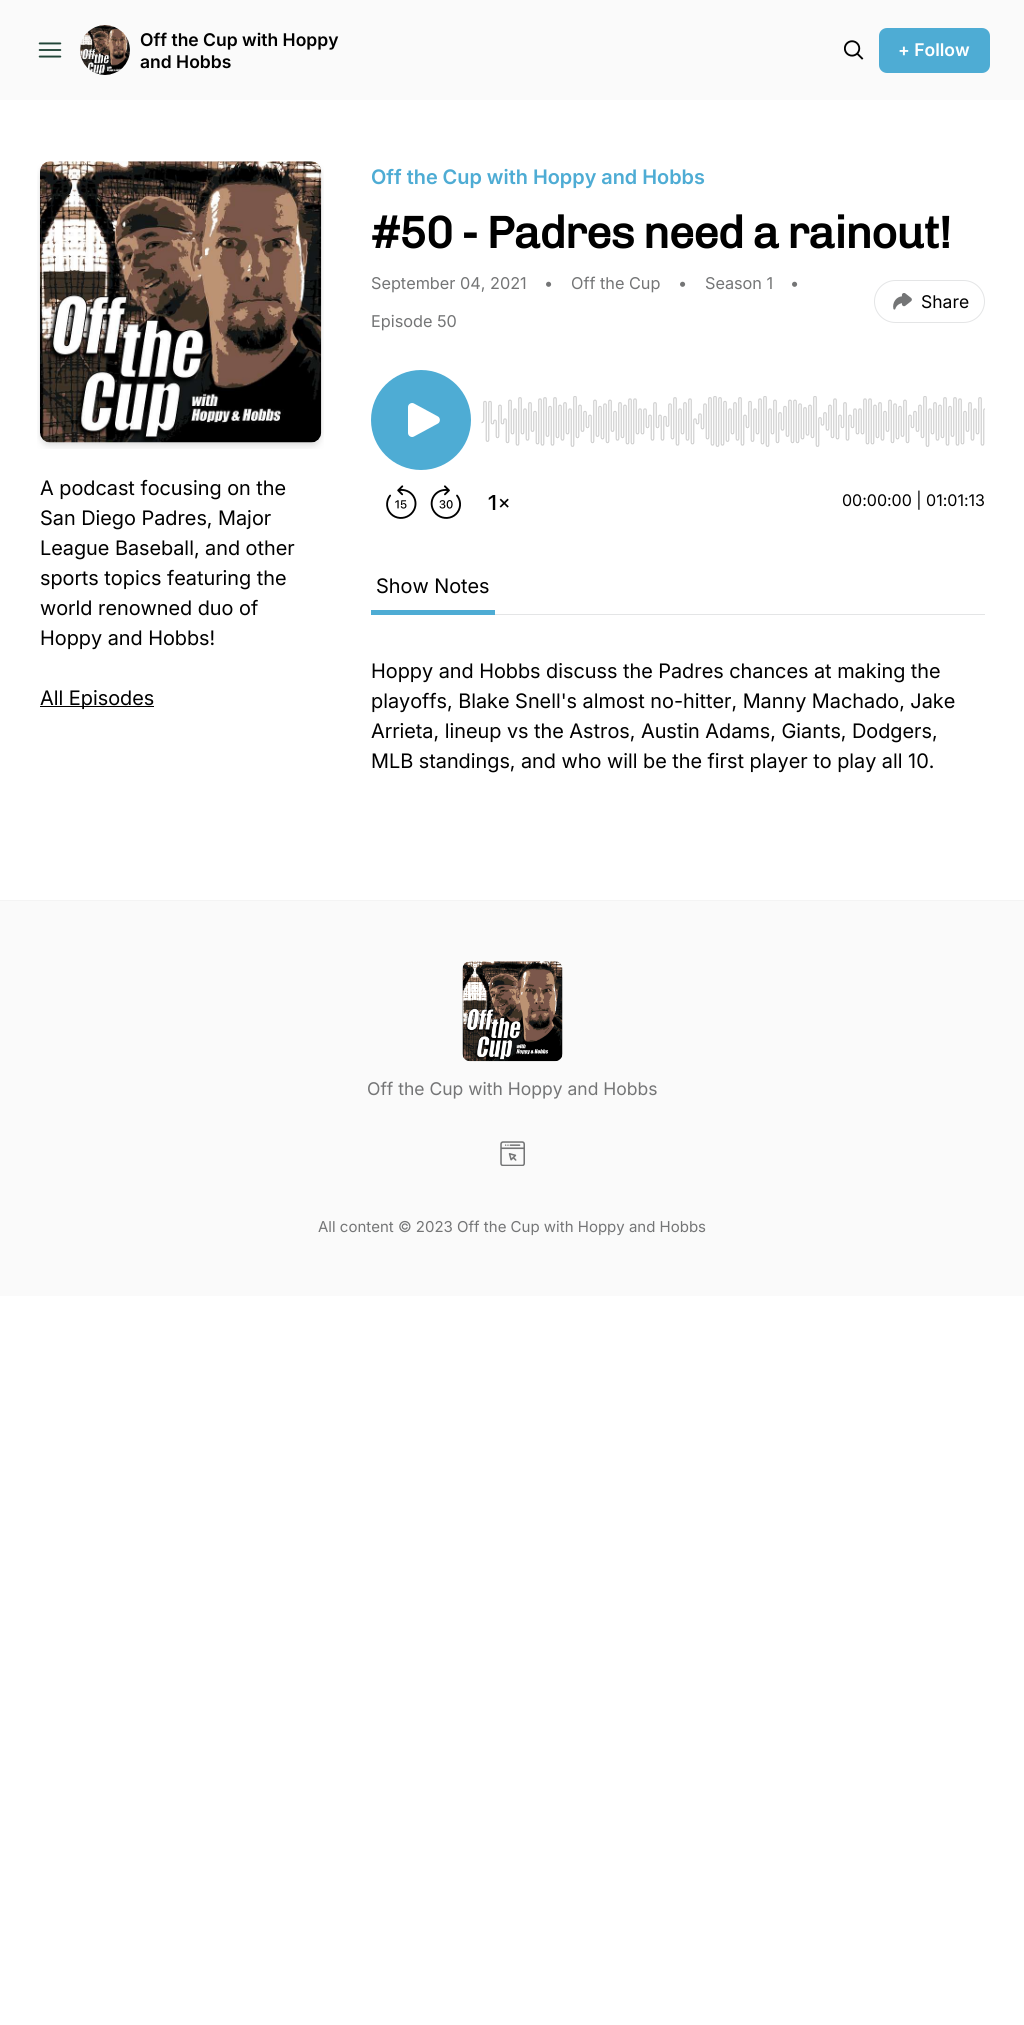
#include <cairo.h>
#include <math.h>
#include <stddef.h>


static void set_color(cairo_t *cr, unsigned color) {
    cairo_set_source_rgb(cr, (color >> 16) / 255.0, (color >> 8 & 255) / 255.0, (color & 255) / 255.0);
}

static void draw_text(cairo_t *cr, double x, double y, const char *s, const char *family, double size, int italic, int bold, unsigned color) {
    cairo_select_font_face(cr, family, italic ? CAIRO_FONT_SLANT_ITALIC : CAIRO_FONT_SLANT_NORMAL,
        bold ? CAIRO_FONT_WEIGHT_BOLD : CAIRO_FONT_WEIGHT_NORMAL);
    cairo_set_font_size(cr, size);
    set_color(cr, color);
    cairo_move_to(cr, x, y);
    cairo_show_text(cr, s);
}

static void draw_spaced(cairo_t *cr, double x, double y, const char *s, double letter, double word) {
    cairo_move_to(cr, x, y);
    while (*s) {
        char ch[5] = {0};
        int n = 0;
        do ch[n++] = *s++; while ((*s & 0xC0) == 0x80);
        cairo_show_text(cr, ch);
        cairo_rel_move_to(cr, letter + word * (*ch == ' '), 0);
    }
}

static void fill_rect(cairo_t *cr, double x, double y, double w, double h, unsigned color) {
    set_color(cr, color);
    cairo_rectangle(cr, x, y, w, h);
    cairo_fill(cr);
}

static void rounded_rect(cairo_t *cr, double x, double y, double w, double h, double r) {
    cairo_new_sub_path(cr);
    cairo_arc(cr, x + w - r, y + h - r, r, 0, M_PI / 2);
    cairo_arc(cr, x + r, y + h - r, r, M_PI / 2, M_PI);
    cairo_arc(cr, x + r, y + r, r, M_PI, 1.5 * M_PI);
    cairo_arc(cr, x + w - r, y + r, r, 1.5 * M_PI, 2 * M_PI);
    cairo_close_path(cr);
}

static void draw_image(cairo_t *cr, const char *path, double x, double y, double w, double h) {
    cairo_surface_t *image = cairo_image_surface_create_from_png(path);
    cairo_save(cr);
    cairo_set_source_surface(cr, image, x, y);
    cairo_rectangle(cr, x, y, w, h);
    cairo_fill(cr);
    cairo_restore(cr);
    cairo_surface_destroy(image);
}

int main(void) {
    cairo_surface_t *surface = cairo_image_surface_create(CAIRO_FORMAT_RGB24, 1024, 2025);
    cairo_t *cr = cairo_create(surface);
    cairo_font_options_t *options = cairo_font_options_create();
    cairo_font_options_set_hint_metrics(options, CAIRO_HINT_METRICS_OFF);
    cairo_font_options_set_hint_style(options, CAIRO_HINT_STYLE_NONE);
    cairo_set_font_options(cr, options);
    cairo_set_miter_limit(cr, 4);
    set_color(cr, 0xFFFFFF);
    cairo_paint(cr);
    fill_rect(cr, 0, 0, 1024, 100, 0xFAFAFA);
    draw_image(cr, "assets/img1.png", 38, 42, 24, 16);
    draw_image(cr, "assets/img2.png", 80, 25, 50, 50);
    draw_text(cr, 140, 46, "Off the Cup with Hoppy", "Inter SemiBold", 17.5, 0, 0, 0x000000);
    draw_text(cr, 140, 68, "and Hobbs", "Inter SemiBold", 17.5, 0, 0, 0x000000);
    draw_image(cr, "assets/img3.png", 844, 40, 20, 20);
    set_color(cr, 0x4EACD4);
    rounded_rect(cr, 879, 28, 111, 45, 8);
    cairo_fill(cr);
    draw_text(cr, 898, 56, "+ Follow", "Inter SemiBold", 17.5, 0, 0, 0xFFFFFF);
    draw_image(cr, "assets/img4.png", 37, 161, 287, 288);
    draw_text(cr, 40, 495, "A podcast focusing on the", "Inter", 20, 0, 0, 0x000000);
    draw_text(cr, 40, 525, "San Diego Padres, Major", "Inter", 20, 0, 0, 0x000000);
    draw_text(cr, 40, 555, "League Baseball, and other", "Inter", 20, 0, 0, 0x000000);
    draw_text(cr, 40, 585, "sports topics featuring the", "Inter", 20, 0, 0, 0x000000);
    draw_text(cr, 40, 615, "world renowned duo of", "Inter", 20, 0, 0, 0x000000);
    draw_text(cr, 40, 645, "Hoppy and Hobbs!", "Inter", 20, 0, 0, 0x000000);
    fill_rect(cr, 40, 706, 114, 1, 0x000000);
    draw_text(cr, 40, 705, "All Episodes", "Inter", 20, 0, 0, 0x000000);
    draw_text(cr, 371, 184, "Off the Cup with Hoppy and Hobbs", "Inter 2 SemiBold", 20, 0, 0, 0x4EACD4);
    cairo_select_font_face(cr, "Chivo", CAIRO_FONT_SLANT_NORMAL, CAIRO_FONT_WEIGHT_BOLD);
    cairo_set_font_size(cr, 45);
    set_color(cr, 0x000000);
    draw_spaced(cr, 371, 248, "#50 - Padres need a rainout!", -1.1, 0);
    draw_text(cr, 371, 289, "September 04, 2021", "Inter 2", 16.25, 0, 0, 0x747576);
    draw_text(cr, 544, 289, "•", "Inter 2", 16.25, 0, 0, 0x747576);
    draw_text(cr, 571, 289, "Off the Cup", "Inter 2", 16.25, 0, 0, 0x747576);
    draw_text(cr, 678, 289, "•", "Inter 2", 16.25, 0, 0, 0x747576);
    draw_text(cr, 705, 289, "Season 1", "Inter 2", 16.25, 0, 0, 0x747576);
    draw_text(cr, 790, 289, "•", "Inter 2", 16.25, 0, 0, 0x747576);
    draw_text(cr, 371, 327, "Episode 50", "Inter 2", 16.25, 0, 0, 0x747576);
    rounded_rect(cr, 874.5, 280.5, 110, 42, 21);
    set_color(cr, 0xE4E5E6);
    cairo_set_line_width(cr, 1);
    cairo_stroke(cr);
    draw_image(cr, "assets/img5.png", 893, 293, 19, 17);
    draw_text(cr, 921, 308, "Share", "Inter 2", 17.5, 0, 0, 0x000000);
    draw_image(cr, "assets/img6.png", 386, 485, 31, 34);
    draw_image(cr, "assets/img7.png", 430, 485, 31, 34);
    draw_image(cr, "assets/img8.png", 488, 495, 21, 15);
    set_color(cr, 0x4EACD4);
    cairo_arc(cr, 421, 420, 50, 0, 2 * M_PI);
    cairo_fill(cr);
    set_color(cr, 0xFFFFFF);
    cairo_set_fill_rule(cr, CAIRO_FILL_RULE_EVEN_ODD);
    cairo_new_path(cr);
    cairo_move_to(cr, 408, 407);
    cairo_curve_to(cr, 408, 404, 411.5, 402, 414, 403.5);
    cairo_line_to(cr, 438, 416.5);
    cairo_curve_to(cr, 440.5, 418, 440.5, 422, 438, 423.5);
    cairo_line_to(cr, 414, 436.5);
    cairo_curve_to(cr, 411.5, 438, 408, 436, 408, 433);
    cairo_close_path(cr);
    cairo_fill(cr);
    draw_image(cr, "assets/img9.png", 481, 396, 504, 51);
    draw_text(cr, 842, 506, "00:00:00 | 01:01:13", "Inter 2", 16, 0, 0, 0x000000);
    fill_rect(cr, 495, 614, 490, 1, 0xE4E5E6);
    fill_rect(cr, 371, 610, 124, 5, 0x4EACD4);
    draw_text(cr, 376, 593, "Show Notes", "Inter", 20, 0, 0, 0x000000);
    draw_text(cr, 371, 678, "Hoppy and Hobbs discuss the Padres chances at making the", "Inter", 20, 0, 0, 0x000000);
    draw_text(cr, 371, 708, "playoffs, Blake Snell's almost no-hitter, Manny Machado, Jake", "Inter", 20, 0, 0, 0x000000);
    draw_text(cr, 371, 738, "Arrieta, lineup vs the Astros, Austin Adams, Giants, Dodgers,", "Inter", 20, 0, 0, 0x000000);
    draw_text(cr, 371, 768, "MLB standings, and who will be the first player to play all 10.", "Inter", 20, 0, 0, 0x000000);
    fill_rect(cr, 0, 901, 1024, 395, 0xFAFAFA);
    fill_rect(cr, 0, 900, 1024, 1, 0xF4F4F4);
    draw_image(cr, "assets/img10.png", 462, 961, 101, 101);
    draw_text(cr, 367, 1095, "Off the Cup with Hoppy and Hobbs", "Inter 2", 17.5, 0, 0, 0x747576);
    draw_image(cr, "assets/img11.png", 500, 1141, 25, 25);
    draw_text(cr, 318, 1232, "All content © 2023 Off the Cup with Hoppy and Hobbs", "Inter 2", 15, 0, 0, 0x747576);
    cairo_surface_write_to_png(surface, "output.png");
    cairo_font_options_destroy(options);
    cairo_destroy(cr);
    cairo_surface_destroy(surface);
    return 0;
}
